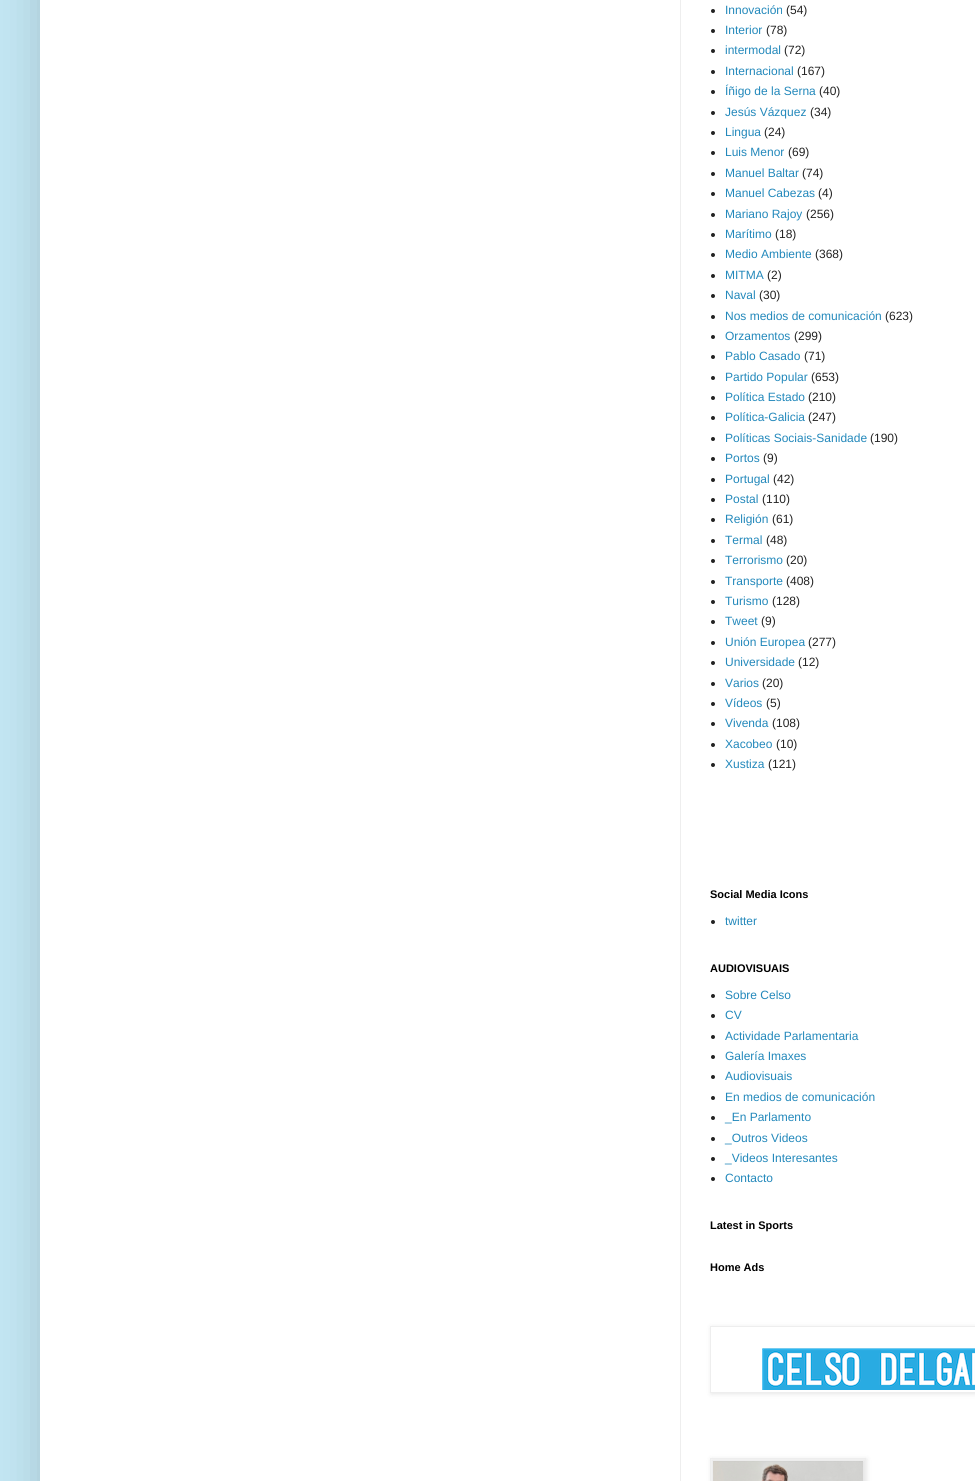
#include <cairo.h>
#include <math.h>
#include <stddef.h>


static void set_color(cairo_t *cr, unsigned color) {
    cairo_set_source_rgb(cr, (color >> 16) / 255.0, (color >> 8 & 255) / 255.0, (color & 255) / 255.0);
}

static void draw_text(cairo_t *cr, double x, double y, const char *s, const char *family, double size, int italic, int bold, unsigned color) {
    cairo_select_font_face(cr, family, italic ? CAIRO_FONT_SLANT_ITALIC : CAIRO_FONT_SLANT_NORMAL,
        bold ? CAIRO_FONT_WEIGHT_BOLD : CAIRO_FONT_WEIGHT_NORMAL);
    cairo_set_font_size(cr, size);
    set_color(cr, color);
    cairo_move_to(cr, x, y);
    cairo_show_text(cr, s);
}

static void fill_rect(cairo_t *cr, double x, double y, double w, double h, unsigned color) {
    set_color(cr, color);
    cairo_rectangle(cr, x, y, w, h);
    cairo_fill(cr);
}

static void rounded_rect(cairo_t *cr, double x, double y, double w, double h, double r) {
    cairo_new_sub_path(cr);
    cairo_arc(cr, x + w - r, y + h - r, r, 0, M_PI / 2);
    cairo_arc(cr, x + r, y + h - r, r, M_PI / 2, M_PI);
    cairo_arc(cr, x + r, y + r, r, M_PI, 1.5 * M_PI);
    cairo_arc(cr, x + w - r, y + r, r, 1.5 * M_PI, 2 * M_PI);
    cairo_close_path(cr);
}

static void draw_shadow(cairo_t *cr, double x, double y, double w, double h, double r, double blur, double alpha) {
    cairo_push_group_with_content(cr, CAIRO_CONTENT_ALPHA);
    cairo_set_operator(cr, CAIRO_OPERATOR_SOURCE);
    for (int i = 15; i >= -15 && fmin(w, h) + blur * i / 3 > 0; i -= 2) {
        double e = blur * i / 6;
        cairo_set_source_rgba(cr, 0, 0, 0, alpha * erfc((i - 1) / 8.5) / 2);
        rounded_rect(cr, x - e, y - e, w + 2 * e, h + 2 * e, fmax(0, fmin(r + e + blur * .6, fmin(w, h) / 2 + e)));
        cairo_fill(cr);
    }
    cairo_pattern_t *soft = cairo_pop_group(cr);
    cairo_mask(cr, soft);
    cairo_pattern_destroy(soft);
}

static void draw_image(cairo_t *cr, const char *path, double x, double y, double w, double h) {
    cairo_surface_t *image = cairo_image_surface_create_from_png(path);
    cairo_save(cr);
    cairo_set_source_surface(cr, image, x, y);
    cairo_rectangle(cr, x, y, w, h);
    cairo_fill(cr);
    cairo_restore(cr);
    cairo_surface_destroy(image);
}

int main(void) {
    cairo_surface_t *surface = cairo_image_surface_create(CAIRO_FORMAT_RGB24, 975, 1481);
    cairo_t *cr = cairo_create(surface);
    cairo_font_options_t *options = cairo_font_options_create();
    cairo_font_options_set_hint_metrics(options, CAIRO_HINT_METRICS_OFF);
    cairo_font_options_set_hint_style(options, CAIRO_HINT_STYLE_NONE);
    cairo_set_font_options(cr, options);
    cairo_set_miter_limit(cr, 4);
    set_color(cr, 0xC2E5F2);
    cairo_paint(cr);
    set_color(cr, 0x000000);
    draw_shadow(cr, 40, -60, 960, 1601, 0, 20, 0.15);
    fill_rect(cr, 40, 0, 935, 1481, 0xFFFFFF);
    fill_rect(cr, 680, 0, 1, 1481, 0xEEEEEE);
    set_color(cr, 0x222222);
    cairo_arc(cr, 713, 11, 2, 0, 2 * M_PI);
    cairo_fill(cr);
    draw_text(cr, 725, 14, "Innovación", "Liberation Sans", 12, 0, 0, 0x2288BB);
    draw_text(cr, 786, 14, "(54)", "Liberation Sans", 12, 0, 0, 0x222222);
    cairo_new_path(cr);
    cairo_arc(cr, 713, 31, 2, 0, 2 * M_PI);
    cairo_fill(cr);
    draw_text(cr, 725, 34, "Interior", "Liberation Sans", 12, 0, 0, 0x2288BB);
    draw_text(cr, 766, 34, "(78)", "Liberation Sans", 12, 0, 0, 0x222222);
    cairo_new_path(cr);
    cairo_arc(cr, 713, 51, 2, 0, 2 * M_PI);
    cairo_fill(cr);
    draw_text(cr, 725, 54, "intermodal", "Liberation Sans", 12, 0, 0, 0x2288BB);
    draw_text(cr, 784, 54, "(72)", "Liberation Sans", 12, 0, 0, 0x222222);
    cairo_new_path(cr);
    cairo_arc(cr, 713, 72, 2, 0, 2 * M_PI);
    cairo_fill(cr);
    draw_text(cr, 725, 75, "Internacional", "Liberation Sans", 12, 0, 0, 0x2288BB);
    draw_text(cr, 797, 75, "(167)", "Liberation Sans", 12, 0, 0, 0x222222);
    cairo_new_path(cr);
    cairo_arc(cr, 713, 92, 2, 0, 2 * M_PI);
    cairo_fill(cr);
    draw_text(cr, 725, 95, "Íñigo de la Serna", "Liberation Sans", 12, 0, 0, 0x2288BB);
    draw_text(cr, 819, 95, "(40)", "Liberation Sans", 12, 0, 0, 0x222222);
    cairo_new_path(cr);
    cairo_arc(cr, 713, 113, 2, 0, 2 * M_PI);
    cairo_fill(cr);
    draw_text(cr, 725, 116, "Jesús Vázquez", "Liberation Sans", 12, 0, 0, 0x2288BB);
    draw_text(cr, 810, 116, "(34)", "Liberation Sans", 12, 0, 0, 0x222222);
    cairo_new_path(cr);
    cairo_arc(cr, 713, 133, 2, 0, 2 * M_PI);
    cairo_fill(cr);
    draw_text(cr, 725, 136, "Lingua", "Liberation Sans", 12, 0, 0, 0x2288BB);
    draw_text(cr, 764, 136, "(24)", "Liberation Sans", 12, 0, 0, 0x222222);
    cairo_new_path(cr);
    cairo_arc(cr, 713, 153, 2, 0, 2 * M_PI);
    cairo_fill(cr);
    draw_text(cr, 725, 156, "Luis Menor", "Liberation Sans", 12, 0, 0, 0x2288BB);
    draw_text(cr, 788, 156, "(69)", "Liberation Sans", 12, 0, 0, 0x222222);
    cairo_new_path(cr);
    cairo_arc(cr, 713, 174, 2, 0, 2 * M_PI);
    cairo_fill(cr);
    draw_text(cr, 725, 177, "Manuel Baltar", "Liberation Sans", 12, 0, 0, 0x2288BB);
    draw_text(cr, 802, 177, "(74)", "Liberation Sans", 12, 0, 0, 0x222222);
    cairo_new_path(cr);
    cairo_arc(cr, 713, 194, 2, 0, 2 * M_PI);
    cairo_fill(cr);
    draw_text(cr, 725, 197, "Manuel Cabezas", "Liberation Sans", 12, 0, 0, 0x2288BB);
    draw_text(cr, 818, 197, "(4)", "Liberation Sans", 12, 0, 0, 0x222222);
    cairo_new_path(cr);
    cairo_arc(cr, 713, 215, 2, 0, 2 * M_PI);
    cairo_fill(cr);
    draw_text(cr, 725, 218, "Mariano Rajoy", "Liberation Sans", 12, 0, 0, 0x2288BB);
    draw_text(cr, 806, 218, "(256)", "Liberation Sans", 12, 0, 0, 0x222222);
    cairo_new_path(cr);
    cairo_arc(cr, 713, 235, 2, 0, 2 * M_PI);
    cairo_fill(cr);
    draw_text(cr, 725, 238, "Marítimo", "Liberation Sans", 12, 0, 0, 0x2288BB);
    draw_text(cr, 775, 238, "(18)", "Liberation Sans", 12, 0, 0, 0x222222);
    cairo_new_path(cr);
    cairo_arc(cr, 713, 255, 2, 0, 2 * M_PI);
    cairo_fill(cr);
    draw_text(cr, 725, 258, "Medio Ambiente", "Liberation Sans", 12, 0, 0, 0x2288BB);
    draw_text(cr, 815, 258, "(368)", "Liberation Sans", 12, 0, 0, 0x222222);
    cairo_new_path(cr);
    cairo_arc(cr, 713, 276, 2, 0, 2 * M_PI);
    cairo_fill(cr);
    draw_text(cr, 725, 279, "MITMA", "Liberation Sans", 12, 0, 0, 0x2288BB);
    draw_text(cr, 767, 279, "(2)", "Liberation Sans", 12, 0, 0, 0x222222);
    cairo_new_path(cr);
    cairo_arc(cr, 713, 296, 2, 0, 2 * M_PI);
    cairo_fill(cr);
    draw_text(cr, 725, 299, "Naval", "Liberation Sans", 12, 0, 0, 0x2288BB);
    draw_text(cr, 759, 299, "(30)", "Liberation Sans", 12, 0, 0, 0x222222);
    cairo_new_path(cr);
    cairo_arc(cr, 713, 317, 2, 0, 2 * M_PI);
    cairo_fill(cr);
    draw_text(cr, 725, 320, "Nos medios de comunicación", "Liberation Sans", 12, 0, 0, 0x2288BB);
    draw_text(cr, 885, 320, "(623)", "Liberation Sans", 12, 0, 0, 0x222222);
    cairo_new_path(cr);
    cairo_arc(cr, 713, 337, 2, 0, 2 * M_PI);
    cairo_fill(cr);
    draw_text(cr, 725, 340, "Orzamentos", "Liberation Sans", 12, 0, 0, 0x2288BB);
    draw_text(cr, 794, 340, "(299)", "Liberation Sans", 12, 0, 0, 0x222222);
    cairo_new_path(cr);
    cairo_arc(cr, 713, 357, 2, 0, 2 * M_PI);
    cairo_fill(cr);
    draw_text(cr, 725, 360, "Pablo Casado", "Liberation Sans", 12, 0, 0, 0x2288BB);
    draw_text(cr, 804, 360, "(71)", "Liberation Sans", 12, 0, 0, 0x222222);
    cairo_new_path(cr);
    cairo_arc(cr, 713, 378, 2, 0, 2 * M_PI);
    cairo_fill(cr);
    draw_text(cr, 725, 381, "Partido Popular", "Liberation Sans", 12, 0, 0, 0x2288BB);
    draw_text(cr, 811, 381, "(653)", "Liberation Sans", 12, 0, 0, 0x222222);
    cairo_new_path(cr);
    cairo_arc(cr, 713, 398, 2, 0, 2 * M_PI);
    cairo_fill(cr);
    draw_text(cr, 725, 401, "Política Estado", "Liberation Sans", 12, 0, 0, 0x2288BB);
    draw_text(cr, 808, 401, "(210)", "Liberation Sans", 12, 0, 0, 0x222222);
    cairo_new_path(cr);
    cairo_arc(cr, 713, 418, 2, 0, 2 * M_PI);
    cairo_fill(cr);
    draw_text(cr, 725, 421, "Política-Galicia", "Liberation Sans", 12, 0, 0, 0x2288BB);
    draw_text(cr, 808, 421, "(247)", "Liberation Sans", 12, 0, 0, 0x222222);
    cairo_new_path(cr);
    cairo_arc(cr, 713, 439, 2, 0, 2 * M_PI);
    cairo_fill(cr);
    draw_text(cr, 725, 442, "Políticas Sociais-Sanidade", "Liberation Sans", 12, 0, 0, 0x2288BB);
    draw_text(cr, 870, 442, "(190)", "Liberation Sans", 12, 0, 0, 0x222222);
    cairo_new_path(cr);
    cairo_arc(cr, 713, 459, 2, 0, 2 * M_PI);
    cairo_fill(cr);
    draw_text(cr, 725, 462, "Portos", "Liberation Sans", 12, 0, 0, 0x2288BB);
    draw_text(cr, 763, 462, "(9)", "Liberation Sans", 12, 0, 0, 0x222222);
    cairo_new_path(cr);
    cairo_arc(cr, 713, 480, 2, 0, 2 * M_PI);
    cairo_fill(cr);
    draw_text(cr, 725, 483, "Portugal", "Liberation Sans", 12, 0, 0, 0x2288BB);
    draw_text(cr, 773, 483, "(42)", "Liberation Sans", 12, 0, 0, 0x222222);
    cairo_new_path(cr);
    cairo_arc(cr, 713, 500, 2, 0, 2 * M_PI);
    cairo_fill(cr);
    draw_text(cr, 725, 503, "Postal", "Liberation Sans", 12, 0, 0, 0x2288BB);
    draw_text(cr, 762, 503, "(110)", "Liberation Sans", 12, 0, 0, 0x222222);
    cairo_new_path(cr);
    cairo_arc(cr, 713, 520, 2, 0, 2 * M_PI);
    cairo_fill(cr);
    draw_text(cr, 725, 523, "Religión", "Liberation Sans", 12, 0, 0, 0x2288BB);
    draw_text(cr, 772, 523, "(61)", "Liberation Sans", 12, 0, 0, 0x222222);
    cairo_new_path(cr);
    cairo_arc(cr, 713, 541, 2, 0, 2 * M_PI);
    cairo_fill(cr);
    draw_text(cr, 725, 544, "Termal", "Liberation Sans", 12, 0, 0, 0x2288BB);
    draw_text(cr, 766, 544, "(48)", "Liberation Sans", 12, 0, 0, 0x222222);
    cairo_new_path(cr);
    cairo_arc(cr, 713, 561, 2, 0, 2 * M_PI);
    cairo_fill(cr);
    draw_text(cr, 725, 564, "Terrorismo", "Liberation Sans", 12, 0, 0, 0x2288BB);
    draw_text(cr, 786, 564, "(20)", "Liberation Sans", 12, 0, 0, 0x222222);
    cairo_new_path(cr);
    cairo_arc(cr, 713, 582, 2, 0, 2 * M_PI);
    cairo_fill(cr);
    draw_text(cr, 725, 585, "Transporte", "Liberation Sans", 12, 0, 0, 0x2288BB);
    draw_text(cr, 786, 585, "(408)", "Liberation Sans", 12, 0, 0, 0x222222);
    cairo_new_path(cr);
    cairo_arc(cr, 713, 602, 2, 0, 2 * M_PI);
    cairo_fill(cr);
    draw_text(cr, 725, 605, "Turismo", "Liberation Sans", 12, 0, 0, 0x2288BB);
    draw_text(cr, 772, 605, "(128)", "Liberation Sans", 12, 0, 0, 0x222222);
    cairo_new_path(cr);
    cairo_arc(cr, 713, 622, 2, 0, 2 * M_PI);
    cairo_fill(cr);
    draw_text(cr, 725, 625, "Tweet", "Liberation Sans", 12, 0, 0, 0x2288BB);
    draw_text(cr, 761, 625, "(9)", "Liberation Sans", 12, 0, 0, 0x222222);
    cairo_new_path(cr);
    cairo_arc(cr, 713, 643, 2, 0, 2 * M_PI);
    cairo_fill(cr);
    draw_text(cr, 725, 646, "Unión Europea", "Liberation Sans", 12, 0, 0, 0x2288BB);
    draw_text(cr, 808, 646, "(277)", "Liberation Sans", 12, 0, 0, 0x222222);
    cairo_new_path(cr);
    cairo_arc(cr, 713, 663, 2, 0, 2 * M_PI);
    cairo_fill(cr);
    draw_text(cr, 725, 666, "Universidade", "Liberation Sans", 12, 0, 0, 0x2288BB);
    draw_text(cr, 798, 666, "(12)", "Liberation Sans", 12, 0, 0, 0x222222);
    cairo_new_path(cr);
    cairo_arc(cr, 713, 684, 2, 0, 2 * M_PI);
    cairo_fill(cr);
    draw_text(cr, 725, 687, "Varios", "Liberation Sans", 12, 0, 0, 0x2288BB);
    draw_text(cr, 762, 687, "(20)", "Liberation Sans", 12, 0, 0, 0x222222);
    cairo_new_path(cr);
    cairo_arc(cr, 713, 704, 2, 0, 2 * M_PI);
    cairo_fill(cr);
    draw_text(cr, 725, 707, "Vídeos", "Liberation Sans", 12, 0, 0, 0x2288BB);
    draw_text(cr, 766, 707, "(5)", "Liberation Sans", 12, 0, 0, 0x222222);
    cairo_new_path(cr);
    cairo_arc(cr, 713, 724, 2, 0, 2 * M_PI);
    cairo_fill(cr);
    draw_text(cr, 725, 727, "Vivenda", "Liberation Sans", 12, 0, 0, 0x2288BB);
    draw_text(cr, 772, 727, "(108)", "Liberation Sans", 12, 0, 0, 0x222222);
    cairo_new_path(cr);
    cairo_arc(cr, 713, 745, 2, 0, 2 * M_PI);
    cairo_fill(cr);
    draw_text(cr, 725, 748, "Xacobeo", "Liberation Sans", 12, 0, 0, 0x2288BB);
    draw_text(cr, 776, 748, "(10)", "Liberation Sans", 12, 0, 0, 0x222222);
    cairo_new_path(cr);
    cairo_arc(cr, 713, 765, 2, 0, 2 * M_PI);
    cairo_fill(cr);
    draw_text(cr, 725, 768, "Xustiza", "Liberation Sans", 12, 0, 0, 0x2288BB);
    draw_text(cr, 768, 768, "(121)", "Liberation Sans", 12, 0, 0, 0x222222);
    draw_text(cr, 710, 898, "Social Media Icons", "Liberation Sans", 11, 0, 1, 0x000000);
    set_color(cr, 0x222222);
    cairo_new_path(cr);
    cairo_arc(cr, 713, 922, 2, 0, 2 * M_PI);
    cairo_fill(cr);
    draw_text(cr, 725, 925, "twitter", "Liberation Sans", 12, 0, 0, 0x2288BB);
    draw_text(cr, 710, 972, "AUDIOVISUAIS", "Liberation Sans", 11, 0, 1, 0x000000);
    set_color(cr, 0x222222);
    cairo_new_path(cr);
    cairo_arc(cr, 713, 996, 2, 0, 2 * M_PI);
    cairo_fill(cr);
    draw_text(cr, 725, 999, "Sobre Celso", "Liberation Sans", 12, 0, 0, 0x2288BB);
    set_color(cr, 0x222222);
    cairo_new_path(cr);
    cairo_arc(cr, 713, 1016, 2, 0, 2 * M_PI);
    cairo_fill(cr);
    draw_text(cr, 725, 1019, "CV", "Liberation Sans", 12, 0, 0, 0x2288BB);
    set_color(cr, 0x222222);
    cairo_new_path(cr);
    cairo_arc(cr, 713, 1037, 2, 0, 2 * M_PI);
    cairo_fill(cr);
    draw_text(cr, 725, 1040, "Actividade Parlamentaria", "Liberation Sans", 12, 0, 0, 0x2288BB);
    set_color(cr, 0x222222);
    cairo_new_path(cr);
    cairo_arc(cr, 713, 1057, 2, 0, 2 * M_PI);
    cairo_fill(cr);
    draw_text(cr, 725, 1060, "Galería Imaxes", "Liberation Sans", 12, 0, 0, 0x2288BB);
    set_color(cr, 0x222222);
    cairo_new_path(cr);
    cairo_arc(cr, 713, 1077, 2, 0, 2 * M_PI);
    cairo_fill(cr);
    draw_text(cr, 725, 1080, "Audiovisuais", "Liberation Sans", 12, 0, 0, 0x2288BB);
    set_color(cr, 0x222222);
    cairo_new_path(cr);
    cairo_arc(cr, 713, 1098, 2, 0, 2 * M_PI);
    cairo_fill(cr);
    draw_text(cr, 725, 1101, "En medios de comunicación", "Liberation Sans", 12, 0, 0, 0x2288BB);
    set_color(cr, 0x222222);
    cairo_new_path(cr);
    cairo_arc(cr, 713, 1118, 2, 0, 2 * M_PI);
    cairo_fill(cr);
    draw_text(cr, 725, 1121, "_En Parlamento", "Liberation Sans", 12, 0, 0, 0x2288BB);
    set_color(cr, 0x222222);
    cairo_new_path(cr);
    cairo_arc(cr, 713, 1139, 2, 0, 2 * M_PI);
    cairo_fill(cr);
    draw_text(cr, 725, 1142, "_Outros Videos", "Liberation Sans", 12, 0, 0, 0x2288BB);
    set_color(cr, 0x222222);
    cairo_new_path(cr);
    cairo_arc(cr, 713, 1159, 2, 0, 2 * M_PI);
    cairo_fill(cr);
    draw_text(cr, 725, 1162, "_Videos Interesantes", "Liberation Sans", 12, 0, 0, 0x2288BB);
    set_color(cr, 0x222222);
    cairo_new_path(cr);
    cairo_arc(cr, 713, 1179, 2, 0, 2 * M_PI);
    cairo_fill(cr);
    draw_text(cr, 725, 1182, "Contacto", "Liberation Sans", 12, 0, 0, 0x2288BB);
    draw_text(cr, 710, 1229, "Latest in Sports", "Liberation Sans", 11, 0, 1, 0x000000);
    draw_text(cr, 710, 1271, "Home Ads", "Liberation Sans", 11, 0, 1, 0x000000);
    cairo_save(cr);
    cairo_set_fill_rule(cr, CAIRO_FILL_RULE_EVEN_ODD);
    cairo_new_path(cr);
    cairo_move_to(cr, 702, 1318);
    cairo_line_to(cr, 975, 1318);
    cairo_line_to(cr, 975, 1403);
    cairo_line_to(cr, 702, 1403);
    cairo_close_path(cr);
    cairo_move_to(cr, 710, 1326);
    cairo_line_to(cr, 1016, 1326);
    cairo_line_to(cr, 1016, 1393);
    cairo_line_to(cr, 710, 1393);
    cairo_close_path(cr);
    cairo_clip(cr);
    set_color(cr, 0x000000);
    draw_shadow(cr, 711, 1327, 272, 67, 0, 2.5, 0.1);
    cairo_restore(cr);
    cairo_rectangle(cr, 710.5, 1326.5, 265, 66);
    set_color(cr, 0xEEEEEE);
    cairo_set_line_width(cr, 1);
    cairo_stroke(cr);
    draw_image(cr, "assets/img1.png", 762, 1348, 213, 42);
    set_color(cr, 0x000000);
    draw_shadow(cr, 711, 1459, 156, 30, 0, 2.5, 0.1);
    cairo_rectangle(cr, 710.5, 1458.5, 155, 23);
    set_color(cr, 0xEEEEEE);
    cairo_stroke(cr);
    draw_image(cr, "assets/img2.png", 713, 1461, 150, 20);
    cairo_surface_write_to_png(surface, "output.png");
    cairo_font_options_destroy(options);
    cairo_destroy(cr);
    cairo_surface_destroy(surface);
    return 0;
}
